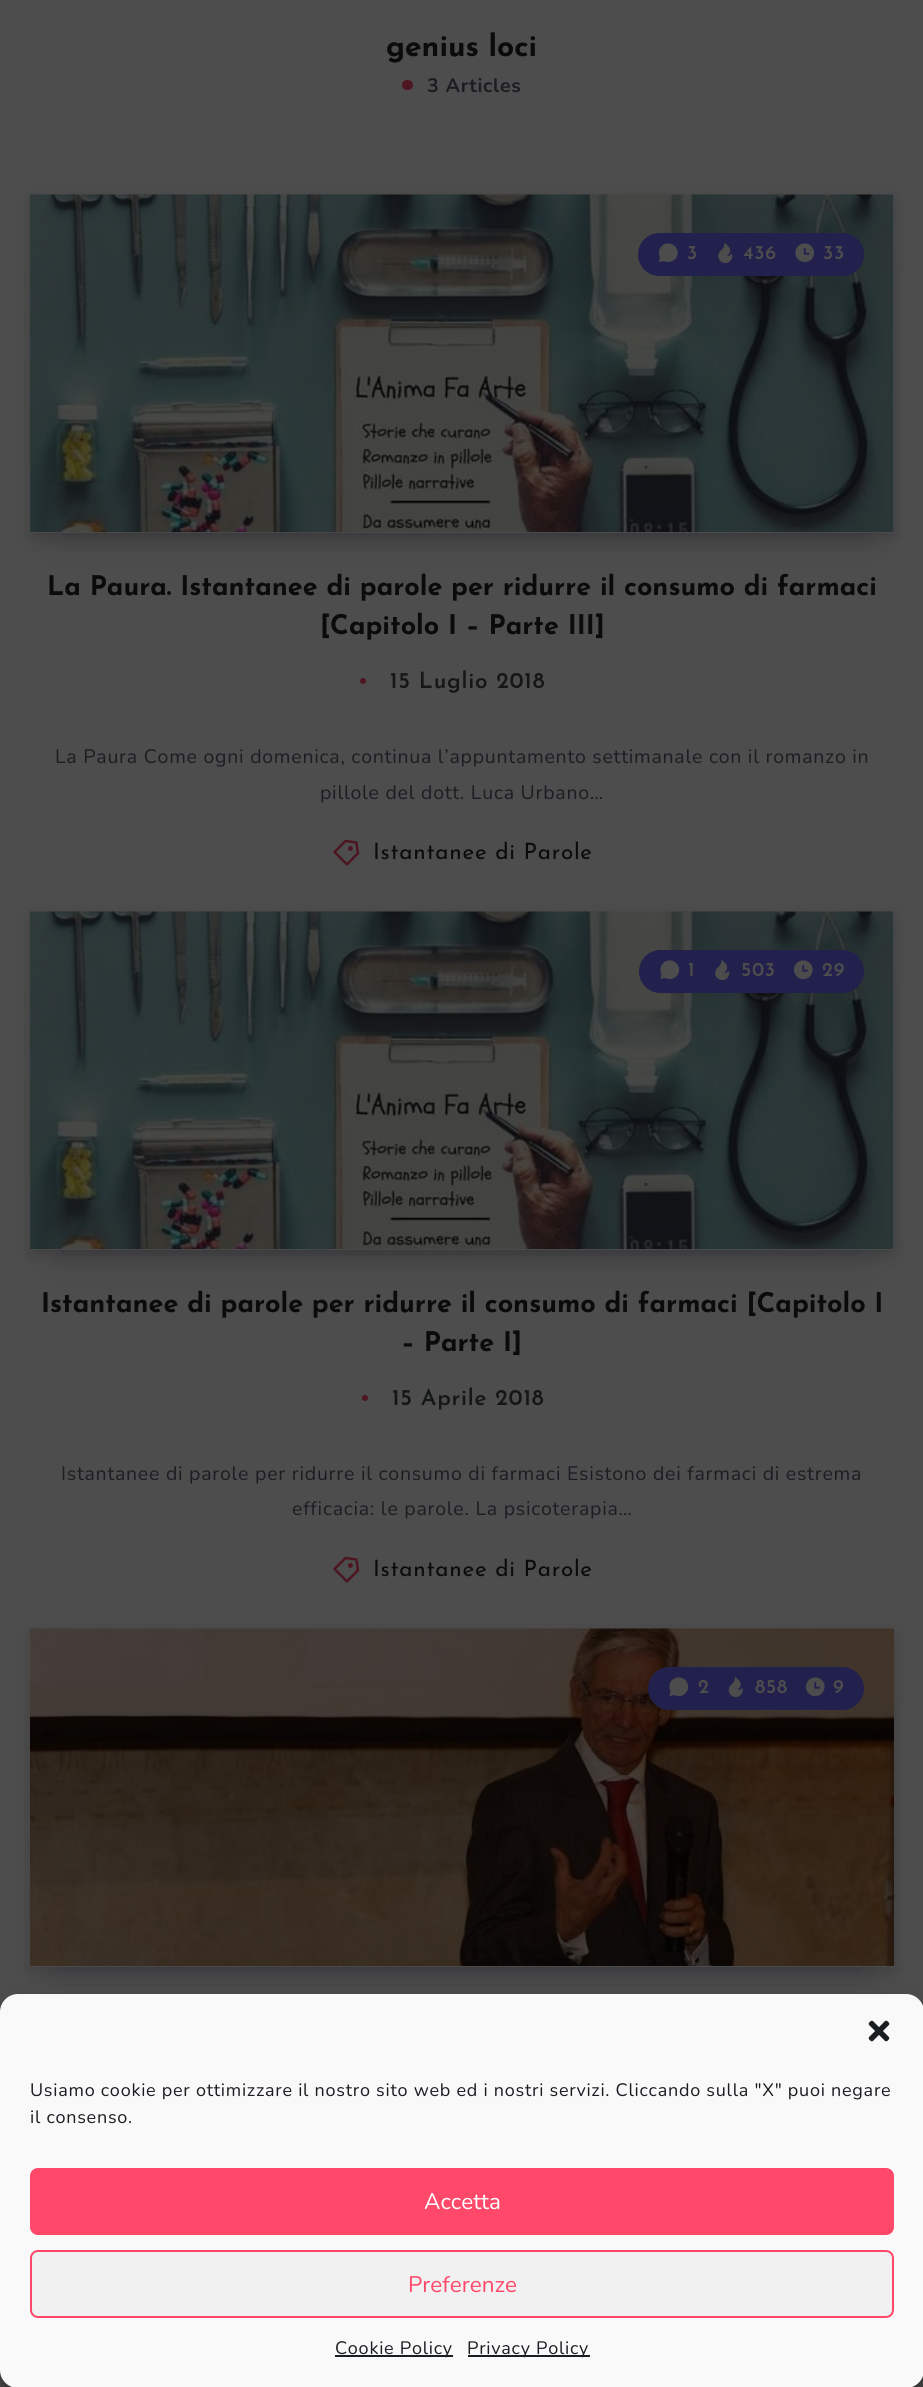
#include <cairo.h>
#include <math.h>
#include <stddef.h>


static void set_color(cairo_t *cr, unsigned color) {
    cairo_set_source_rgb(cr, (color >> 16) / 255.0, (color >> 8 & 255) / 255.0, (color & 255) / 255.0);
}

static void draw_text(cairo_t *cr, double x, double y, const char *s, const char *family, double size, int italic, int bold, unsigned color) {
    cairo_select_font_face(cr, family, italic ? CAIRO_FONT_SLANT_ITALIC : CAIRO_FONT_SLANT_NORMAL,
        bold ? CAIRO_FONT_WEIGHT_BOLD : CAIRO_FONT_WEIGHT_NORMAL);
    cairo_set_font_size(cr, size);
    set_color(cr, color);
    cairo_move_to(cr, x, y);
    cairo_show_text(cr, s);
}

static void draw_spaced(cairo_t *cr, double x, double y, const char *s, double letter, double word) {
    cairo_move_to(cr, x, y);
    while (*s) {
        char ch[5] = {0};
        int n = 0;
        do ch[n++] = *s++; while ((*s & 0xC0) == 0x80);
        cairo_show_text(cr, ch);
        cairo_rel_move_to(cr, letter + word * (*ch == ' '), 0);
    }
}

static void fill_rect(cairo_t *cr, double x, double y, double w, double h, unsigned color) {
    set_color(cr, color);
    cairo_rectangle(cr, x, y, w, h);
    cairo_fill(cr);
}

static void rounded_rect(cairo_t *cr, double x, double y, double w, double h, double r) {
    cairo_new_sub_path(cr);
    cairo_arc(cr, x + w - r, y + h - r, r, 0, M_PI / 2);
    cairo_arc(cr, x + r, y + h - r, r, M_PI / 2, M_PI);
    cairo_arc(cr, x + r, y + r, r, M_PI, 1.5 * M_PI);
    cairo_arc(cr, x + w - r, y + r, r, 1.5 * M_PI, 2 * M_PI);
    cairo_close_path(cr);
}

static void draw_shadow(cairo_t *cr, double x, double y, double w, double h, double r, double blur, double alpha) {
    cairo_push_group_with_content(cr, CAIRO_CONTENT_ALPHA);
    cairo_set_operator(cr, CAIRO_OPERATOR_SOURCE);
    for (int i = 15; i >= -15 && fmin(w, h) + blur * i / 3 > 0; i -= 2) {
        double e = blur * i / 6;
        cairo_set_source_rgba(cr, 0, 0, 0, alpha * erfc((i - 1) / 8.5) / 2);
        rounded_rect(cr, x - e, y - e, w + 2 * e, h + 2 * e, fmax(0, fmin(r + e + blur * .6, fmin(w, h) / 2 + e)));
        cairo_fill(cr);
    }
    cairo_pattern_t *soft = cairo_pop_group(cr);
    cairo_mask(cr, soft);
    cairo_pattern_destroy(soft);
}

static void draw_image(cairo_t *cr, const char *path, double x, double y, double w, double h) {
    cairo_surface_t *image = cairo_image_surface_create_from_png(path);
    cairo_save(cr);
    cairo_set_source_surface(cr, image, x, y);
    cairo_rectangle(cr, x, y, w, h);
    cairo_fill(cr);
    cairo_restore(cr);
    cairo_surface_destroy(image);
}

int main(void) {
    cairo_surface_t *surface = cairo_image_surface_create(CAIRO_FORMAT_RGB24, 923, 2387);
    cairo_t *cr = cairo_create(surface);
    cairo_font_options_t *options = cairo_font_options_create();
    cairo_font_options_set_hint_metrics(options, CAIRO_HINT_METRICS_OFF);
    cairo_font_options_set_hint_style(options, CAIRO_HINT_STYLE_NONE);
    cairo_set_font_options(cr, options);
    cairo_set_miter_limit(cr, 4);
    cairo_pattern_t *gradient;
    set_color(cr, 0x4D4D4D);
    cairo_paint(cr);
    draw_text(cr, 386, 56, "genius loci", "Josefin Sans", 30, 0, 1, 0x0B0B0B);
    set_color(cr, 0x4D1620);
    rounded_rect(cr, 402, 80, 11, 10, 5);
    cairo_fill(cr);
    cairo_select_font_face(cr, "Nunito", CAIRO_FONT_SLANT_NORMAL, CAIRO_FONT_WEIGHT_BOLD);
    cairo_set_font_size(cr, 19.5);
    set_color(cr, 0x1B1D22);
    draw_spaced(cr, 427, 92, "3 Articles", 0.75, 0);
    set_color(cr, 0x020308);
    draw_shadow(cr, 60, 258, 804, 278, 0, 20, 0.2);
    draw_shadow(cr, 32, 201, 861, 335, 0, 9, 0.2);
    draw_image(cr, "assets/img4.png", 30, 194, 864, 338);
    set_color(cr, 0x22204C);
    rounded_rect(cr, 638, 233, 226, 43, 21.5);
    cairo_fill(cr);
    draw_image(cr, "assets/img1.png", 658, 243, 20, 20);
    cairo_select_font_face(cr, "Josefin Sans SemiBold", CAIRO_FONT_SLANT_NORMAL, CAIRO_FONT_WEIGHT_NORMAL);
    set_color(cr, 0x4D4D4D);
    draw_spaced(cr, 687, 259, "3", 0.75, 0);
    draw_image(cr, "assets/img2.png", 718, 243, 15, 21);
    draw_spaced(cr, 743, 259, "436", 0.75, 0);
    draw_image(cr, "assets/img3.png", 795, 243, 20, 20);
    draw_spaced(cr, 823, 259, "33", 0.75, 0);
    gradient = cairo_pattern_create_linear(30, 364, 462, 364);
    cairo_pattern_add_color_stop_rgba(gradient, 0, 0.29, 0.29, 0.29, 1);
    cairo_pattern_add_color_stop_rgba(gradient, 0.5, 0.286, 0.286, 0.286, 1);
    cairo_pattern_add_color_stop_rgba(gradient, 1, 0.29, 0.29, 0.29, 1);
    cairo_set_source(cr, gradient);
    cairo_pattern_destroy(gradient);
    cairo_rectangle(cr, 30, 532, 432, 1);
    cairo_fill(cr);
    fill_rect(cr, 462, 532, 432, 1, 0x4B4B4B);
    draw_text(cr, 47, 595, "La Paura. Istantanee di parole per ridurre il consumo di farmaci", "Josefin Sans", 27, 0, 1, 0x0B0B0B);
    draw_text(cr, 320, 634, "[Capitolo I – Parte III]", "Josefin Sans", 27, 0, 1, 0x0B0B0B);
    set_color(cr, 0x4D1620);
    cairo_new_path(cr);
    cairo_arc(cr, 363, 681, 3, 0, 2 * M_PI);
    cairo_fill(cr);
    cairo_select_font_face(cr, "Josefin Sans SemiBold", CAIRO_FONT_SLANT_NORMAL, CAIRO_FONT_WEIGHT_NORMAL);
    cairo_set_font_size(cr, 22.5);
    set_color(cr, 0x141618);
    draw_spaced(cr, 390, 688, "15 Luglio 2018", 0.75, 0);
    cairo_select_font_face(cr, "Nunito", CAIRO_FONT_SLANT_NORMAL, CAIRO_FONT_WEIGHT_NORMAL);
    cairo_set_font_size(cr, 19.5);
    set_color(cr, 0x1B1D22);
    draw_spaced(cr, 55, 763, "La Paura Come ogni domenica, continua l’appuntamento settimanale con il romanzo in", 0.75, 0);
    draw_spaced(cr, 320, 799, "pillole del dott. Luca Urbano…", 0.75, 0);
    draw_image(cr, "assets/img5.png", 333, 839, 27, 27);
    cairo_select_font_face(cr, "Josefin Sans", CAIRO_FONT_SLANT_NORMAL, CAIRO_FONT_WEIGHT_NORMAL);
    cairo_set_font_size(cr, 22.5);
    set_color(cr, 0x0B0B0B);
    draw_spaced(cr, 373, 859, "Istantanee di Parole", 0.75, 0);
    set_color(cr, 0x020308);
    draw_shadow(cr, 60, 975, 804, 278, 0, 20, 0.2);
    draw_shadow(cr, 32, 918, 861, 335, 0, 9, 0.2);
    draw_image(cr, "assets/img4.png", 30, 911, 864, 338);
    set_color(cr, 0x22204C);
    rounded_rect(cr, 639, 950, 225, 43, 21.5);
    cairo_fill(cr);
    draw_image(cr, "assets/img6.png", 660, 960, 20, 20);
    cairo_select_font_face(cr, "Josefin Sans SemiBold", CAIRO_FONT_SLANT_NORMAL, CAIRO_FONT_WEIGHT_NORMAL);
    cairo_set_font_size(cr, 19.5);
    set_color(cr, 0x4D4D4D);
    draw_spaced(cr, 688, 976, "1", 0.75, 0);
    draw_image(cr, "assets/img2.png", 715, 960, 15, 21);
    draw_spaced(cr, 741, 976, "503", 0.75, 0);
    draw_image(cr, "assets/img7.png", 793, 960, 20, 20);
    draw_spaced(cr, 822, 976, "29", 0.75, 0);
    gradient = cairo_pattern_create_linear(30, 1081, 462, 1081);
    cairo_pattern_add_color_stop_rgba(gradient, 0, 0.29, 0.29, 0.29, 1);
    cairo_pattern_add_color_stop_rgba(gradient, 0.5, 0.286, 0.286, 0.286, 1);
    cairo_pattern_add_color_stop_rgba(gradient, 1, 0.29, 0.29, 0.29, 1);
    cairo_set_source(cr, gradient);
    cairo_pattern_destroy(gradient);
    cairo_rectangle(cr, 30, 1249, 432, 1);
    cairo_fill(cr);
    fill_rect(cr, 462, 1249, 432, 1, 0x4B4B4B);
    draw_text(cr, 41, 1312, "Istantanee di parole per ridurre il consumo di farmaci [Capitolo I", "Josefin Sans", 27, 0, 1, 0x0B0B0B);
    draw_text(cr, 401, 1351, "– Parte I]", "Josefin Sans", 27, 0, 1, 0x0B0B0B);
    set_color(cr, 0x4D1620);
    cairo_new_path(cr);
    cairo_arc(cr, 365, 1398, 3, 0, 2 * M_PI);
    cairo_fill(cr);
    cairo_select_font_face(cr, "Josefin Sans SemiBold", CAIRO_FONT_SLANT_NORMAL, CAIRO_FONT_WEIGHT_NORMAL);
    cairo_set_font_size(cr, 22.5);
    set_color(cr, 0x141618);
    draw_spaced(cr, 392, 1405, "15 Aprile 2018", 0.75, 0);
    cairo_select_font_face(cr, "Nunito", CAIRO_FONT_SLANT_NORMAL, CAIRO_FONT_WEIGHT_NORMAL);
    cairo_set_font_size(cr, 19.5);
    set_color(cr, 0x1B1D22);
    draw_spaced(cr, 61, 1480, "Istantanee di parole per ridurre il consumo di farmaci Esistono dei farmaci di estrema", 0.75, 0);
    draw_spaced(cr, 292, 1515, "efficacia: le parole. La psicoterapia…", 0.75, 0);
    draw_image(cr, "assets/img5.png", 333, 1556, 27, 27);
    cairo_select_font_face(cr, "Josefin Sans", CAIRO_FONT_SLANT_NORMAL, CAIRO_FONT_WEIGHT_NORMAL);
    cairo_set_font_size(cr, 22.5);
    set_color(cr, 0x0B0B0B);
    draw_spaced(cr, 373, 1576, "Istantanee di Parole", 0.75, 0);
    set_color(cr, 0x020308);
    draw_shadow(cr, 60, 1692, 804, 278, 0, 20, 0.2);
    draw_shadow(cr, 32, 1635, 861, 335, 0, 9, 0.2);
    draw_image(cr, "assets/img8.png", 30, 1628, 864, 338);
    gradient = cairo_pattern_create_linear(30, 1798, 462, 1798);
    cairo_pattern_add_color_stop_rgba(gradient, 0, 0.29, 0.29, 0.29, 1);
    cairo_pattern_add_color_stop_rgba(gradient, 0.5, 0.286, 0.286, 0.286, 1);
    cairo_pattern_add_color_stop_rgba(gradient, 1, 0.29, 0.29, 0.29, 1);
    cairo_set_source(cr, gradient);
    cairo_pattern_destroy(gradient);
    cairo_rectangle(cr, 30, 1966, 432, 1);
    cairo_fill(cr);
    fill_rect(cr, 462, 1966, 432, 1, 0x4B4B4B);
    set_color(cr, 0x22204C);
    rounded_rect(cr, 648, 1667, 216, 43, 21.5);
    cairo_fill(cr);
    draw_image(cr, "assets/img6.png", 669, 1677, 20, 20);
    cairo_select_font_face(cr, "Josefin Sans SemiBold", CAIRO_FONT_SLANT_NORMAL, CAIRO_FONT_WEIGHT_NORMAL);
    cairo_set_font_size(cr, 19.5);
    set_color(cr, 0x4D4D4D);
    draw_spaced(cr, 698, 1693, "2", 0.75, 0);
    draw_image(cr, "assets/img9.png", 728, 1677, 15, 21);
    draw_spaced(cr, 755, 1693, "858", 0.75, 0);
    draw_image(cr, "assets/img7.png", 805, 1677, 20, 20);
    draw_spaced(cr, 833, 1693, "9", 0.75, 0);
    set_color(cr, 0x000000);
    draw_shadow(cr, 0, 2003, 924, 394, 18, 4.5, 0.23);
    draw_shadow(cr, 0, 2009, 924, 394, 18, 15, 0.19);
    set_color(cr, 0xF9F9F9);
    rounded_rect(cr, 0, 1994, 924, 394, 18);
    cairo_fill(cr);
    draw_image(cr, "assets/img10.png", 868, 2020, 22, 22);
    cairo_select_font_face(cr, "Nunito", CAIRO_FONT_SLANT_NORMAL, CAIRO_FONT_WEIGHT_NORMAL);
    cairo_set_font_size(cr, 18);
    set_color(cr, 0x1B1D22);
    draw_spaced(cr, 30, 2096, "Usiamo cookie per ottimizzare il nostro sito web ed i nostri servizi. Cliccando sulla \"X\" puoi negare", 0.75, 0);
    draw_spaced(cr, 30, 2123, "il consenso.", 0.75, 0);
    set_color(cr, 0xFF486A);
    rounded_rect(cr, 31, 2169, 862, 65, 7);
    cairo_fill_preserve(cr);
    cairo_stroke(cr);
    draw_text(cr, 424, 2209, "Accetta", "Nunito", 22.5, 0, 0, 0xFFFFFF);
    set_color(cr, 0xF1F1F1);
    rounded_rect(cr, 31, 2251, 862, 66, 7);
    cairo_fill_preserve(cr);
    set_color(cr, 0xFF486A);
    cairo_stroke(cr);
    draw_text(cr, 408, 2292, "Preferenze", "Nunito", 22.5, 0, 0, 0xFF486A);
    fill_rect(cr, 335, 2355, 118, 2, 0x191E23);
    cairo_set_font_size(cr, 18);
    set_color(cr, 0x1B1D22);
    draw_spaced(cr, 335, 2354, "Cookie Policy", 0.75, 0);
    fill_rect(cr, 468, 2355, 122, 2, 0x191E23);
    set_color(cr, 0x1B1D22);
    draw_spaced(cr, 467, 2354, "Privacy Policy", 0.75, 0);
    cairo_surface_write_to_png(surface, "output.png");
    cairo_font_options_destroy(options);
    cairo_destroy(cr);
    cairo_surface_destroy(surface);
    return 0;
}
